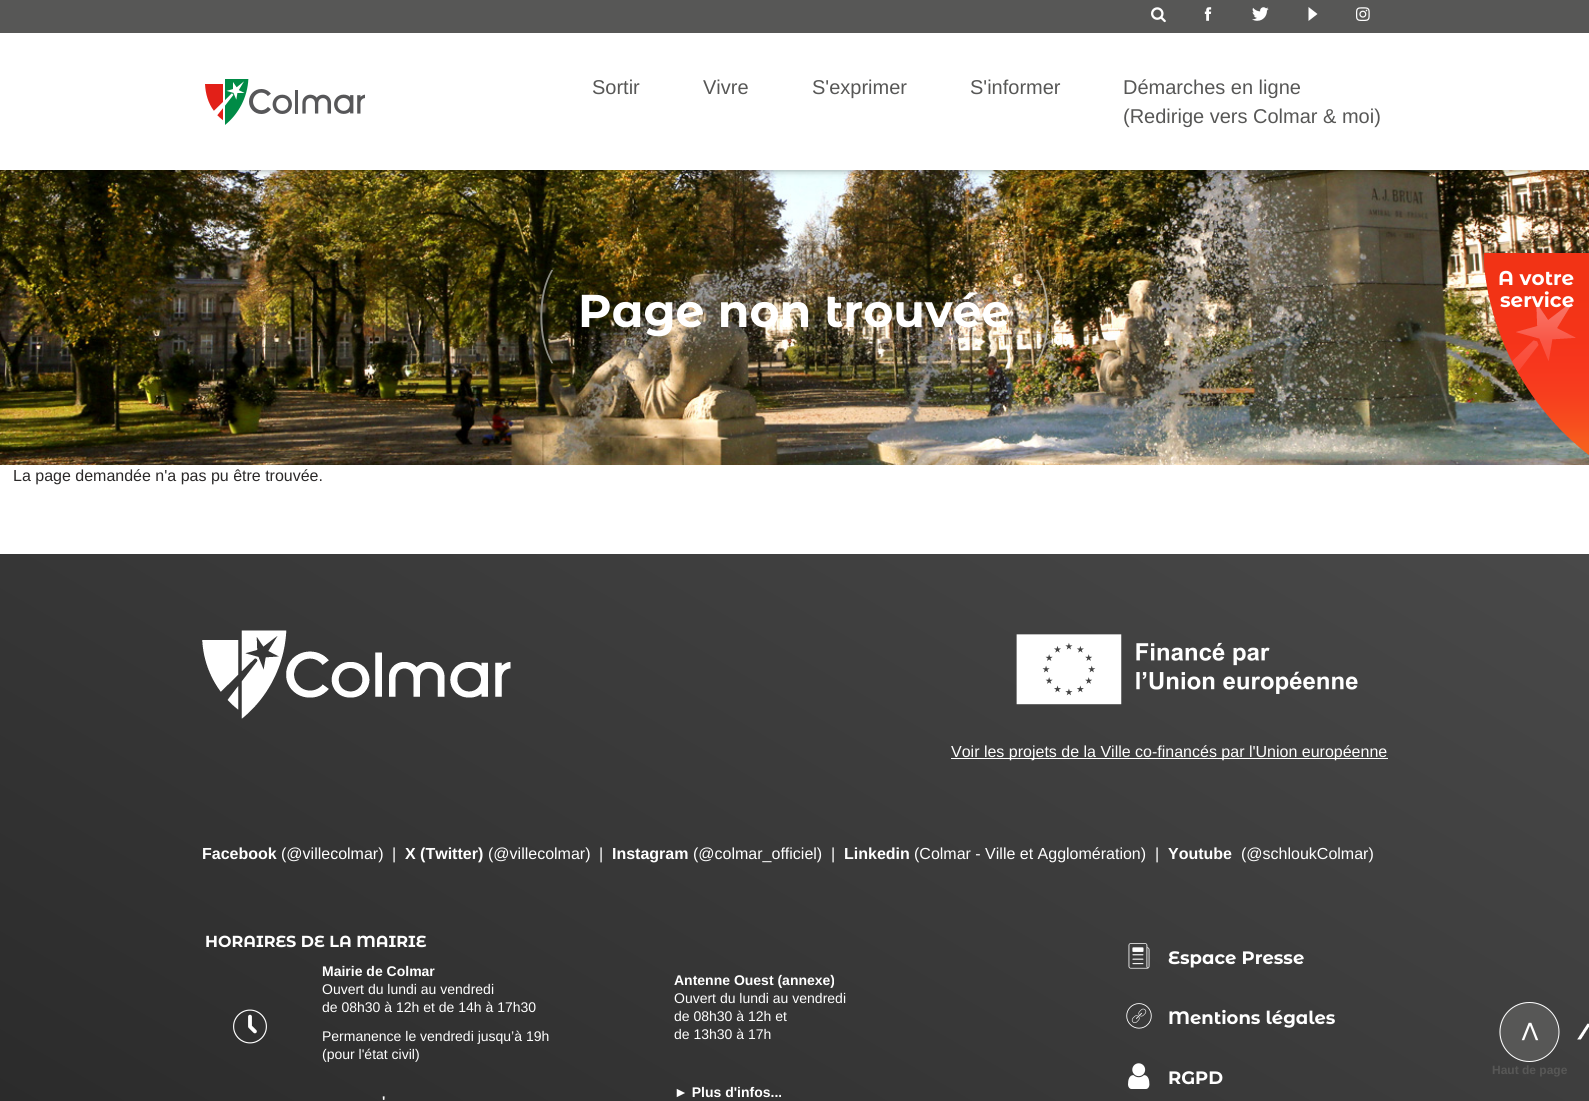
#include <cairo.h>
#include <math.h>
#include <stddef.h>


static void set_color(cairo_t *cr, unsigned color) {
    cairo_set_source_rgb(cr, (color >> 16) / 255.0, (color >> 8 & 255) / 255.0, (color & 255) / 255.0);
}

static void draw_text(cairo_t *cr, double x, double y, const char *s, const char *family, double size, int italic, int bold, unsigned color) {
    cairo_select_font_face(cr, family, italic ? CAIRO_FONT_SLANT_ITALIC : CAIRO_FONT_SLANT_NORMAL,
        bold ? CAIRO_FONT_WEIGHT_BOLD : CAIRO_FONT_WEIGHT_NORMAL);
    cairo_set_font_size(cr, size);
    set_color(cr, color);
    cairo_move_to(cr, x, y);
    cairo_show_text(cr, s);
}

static void fill_rect(cairo_t *cr, double x, double y, double w, double h, unsigned color) {
    set_color(cr, color);
    cairo_rectangle(cr, x, y, w, h);
    cairo_fill(cr);
}

static void rounded_rect(cairo_t *cr, double x, double y, double w, double h, double r) {
    cairo_new_sub_path(cr);
    cairo_arc(cr, x + w - r, y + h - r, r, 0, M_PI / 2);
    cairo_arc(cr, x + r, y + h - r, r, M_PI / 2, M_PI);
    cairo_arc(cr, x + r, y + r, r, M_PI, 1.5 * M_PI);
    cairo_arc(cr, x + w - r, y + r, r, 1.5 * M_PI, 2 * M_PI);
    cairo_close_path(cr);
}

static void draw_shadow(cairo_t *cr, double x, double y, double w, double h, double r, double blur, double alpha) {
    cairo_push_group_with_content(cr, CAIRO_CONTENT_ALPHA);
    cairo_set_operator(cr, CAIRO_OPERATOR_SOURCE);
    for (int i = 15; i >= -15 && fmin(w, h) + blur * i / 3 > 0; i -= 2) {
        double e = blur * i / 6;
        cairo_set_source_rgba(cr, 0, 0, 0, alpha * erfc((i - 1) / 8.5) / 2);
        rounded_rect(cr, x - e, y - e, w + 2 * e, h + 2 * e, fmax(0, fmin(r + e + blur * .6, fmin(w, h) / 2 + e)));
        cairo_fill(cr);
    }
    cairo_pattern_t *soft = cairo_pop_group(cr);
    cairo_mask(cr, soft);
    cairo_pattern_destroy(soft);
}

static void draw_image(cairo_t *cr, const char *path, double x, double y, double w, double h) {
    cairo_surface_t *image = cairo_image_surface_create_from_png(path);
    cairo_save(cr);
    cairo_set_source_surface(cr, image, x, y);
    cairo_rectangle(cr, x, y, w, h);
    cairo_fill(cr);
    cairo_restore(cr);
    cairo_surface_destroy(image);
}

int main(void) {
    cairo_surface_t *surface = cairo_image_surface_create(CAIRO_FORMAT_RGB24, 1589, 1101);
    cairo_t *cr = cairo_create(surface);
    cairo_font_options_t *options = cairo_font_options_create();
    cairo_font_options_set_hint_metrics(options, CAIRO_HINT_METRICS_OFF);
    cairo_font_options_set_hint_style(options, CAIRO_HINT_STYLE_NONE);
    cairo_set_font_options(cr, options);
    cairo_set_miter_limit(cr, 4);
    cairo_pattern_t *gradient;
    set_color(cr, 0xFFFFFF);
    cairo_paint(cr);
    draw_image(cr, "assets/img7.png", 0, 170, 1589, 295);
    set_color(cr, 0x000000);
    draw_shadow(cr, -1, -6, 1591, 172, 0, 5, 1);
    fill_rect(cr, 0, 33, 1589, 137, 0xFFFFFF);
    fill_rect(cr, 0, 0, 1589, 33, 0x575756);
    draw_image(cr, "assets/img1.png", 1151, 7, 15, 16);
    draw_image(cr, "assets/img2.png", 1204, 7, 8, 14);
    draw_image(cr, "assets/img3.png", 1252, 7, 17, 14);
    set_color(cr, 0xFFFFFF);
    cairo_new_path(cr);
    cairo_move_to(cr, 1308.5, 21);
    cairo_line_to(cr, 1308.5, 7);
    cairo_line_to(cr, 1317.5, 14);
    cairo_close_path(cr);
    cairo_fill(cr);
    draw_image(cr, "assets/img4.png", 1356, 7, 14, 14);
    draw_image(cr, "assets/img5.png", 205, 79, 160, 46);
    draw_text(cr, 592, 94, "Sortir", "Liberation Sans", 20, 0, 0, 0x575756);
    draw_text(cr, 703, 94, "Vivre", "Liberation Sans", 20, 0, 0, 0x575756);
    draw_text(cr, 812, 94, "S'exprimer", "Liberation Sans", 20, 0, 0, 0x575756);
    draw_text(cr, 970, 94, "S'informer", "Liberation Sans", 20, 0, 0, 0x575756);
    draw_text(cr, 1123, 94, "Démarches en ligne", "Liberation Sans", 20, 0, 0, 0x575756);
    draw_text(cr, 1123, 123, "(Redirige vers Colmar & moi)", "Liberation Sans", 20, 0, 0, 0x575756);
    draw_image(cr, "assets/img6.png", 1484, 253, 105, 202);
    draw_text(cr, 1498, 285, "A votre", "Montserrat Alternates", 20, 0, 1, 0xFFFFFF);
    draw_text(cr, 1500, 307, "service", "Montserrat Alternates", 20, 0, 1, 0xFFFFFF);
    draw_text(cr, 528, 344, "(", "Montserrat Alternates Thin", 100, 0, 0, 0x8D8D85);
    draw_text(cr, 578, 327, "Page non trouvée", "Montserrat Alternates", 46, 0, 1, 0xFFFFFF);
    draw_text(cr, 1030, 344, ")", "Montserrat Alternates Thin", 100, 0, 0, 0xB4AD9B);
    draw_text(cr, 13, 481, "La page demandée n'a pas pu être trouvée.", "Liberation Sans", 16, 0, 0, 0x2B2929);
    gradient = cairo_pattern_create_linear(402, 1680, 1187, 322);
    cairo_pattern_add_color_stop_rgba(gradient, 0, 0.141, 0.141, 0.141, 1);
    cairo_pattern_add_color_stop_rgba(gradient, 1, 0.286, 0.286, 0.286, 1);
    cairo_set_source(cr, gradient);
    cairo_pattern_destroy(gradient);
    cairo_rectangle(cr, 0, 554, 1589, 547);
    cairo_fill(cr);
    set_color(cr, 0x575756);
    cairo_new_path(cr);
    cairo_move_to(cr, 1499, 1032);
    cairo_curve_to(cr, 1499, 1015, 1513, 1002, 1529, 1002);
    cairo_curve_to(cr, 1546, 1002, 1559, 1015, 1559, 1032);
    cairo_curve_to(cr, 1559, 1048, 1546, 1062, 1529, 1062);
    cairo_curve_to(cr, 1513, 1062, 1499, 1048, 1499, 1032);
    cairo_close_path(cr);
    cairo_fill(cr);
    cairo_new_path(cr);
    cairo_move_to(cr, 1500, 1032);
    cairo_curve_to(cr, 1500, 1015.5, 1513, 1002.5, 1529.5, 1002.5);
    cairo_curve_to(cr, 1545.5, 1002.5, 1559, 1015.5, 1559, 1032);
    cairo_curve_to(cr, 1559, 1048, 1545.5, 1061.5, 1529.5, 1061.5);
    cairo_curve_to(cr, 1513, 1061.5, 1500, 1048, 1500, 1032);
    cairo_close_path(cr);
    set_color(cr, 0xFFFFFF);
    cairo_set_line_width(cr, 1);
    cairo_stroke(cr);
    cairo_save(cr);
    cairo_translate(cr, 1544, 1043);
    cairo_rotate(cr, -90 * M_PI / 180);
    draw_text(cr, 0, 0, ">", "Montserrat Alternates", 40, 0, 0, 0xFFFFFF);
    cairo_restore(cr);
    draw_image(cr, "assets/img8.png", 1577, 1023, 12, 17);
    draw_text(cr, 1492, 1074, "Haut de page", "Liberation Sans", 12, 0, 1, 0x575756);
    draw_image(cr, "assets/img9.png", 202, 630, 309, 89);
    draw_image(cr, "assets/img10.png", 1016, 634, 342, 71);
    fill_rect(cr, 951, 758, 437, 1, 0xFFFFFF);
    draw_text(cr, 951, 757, "Voir les projets de la Ville co-financés par l'Union européenne", "Liberation Sans", 16, 0, 0, 0xFFFFFF);
    draw_text(cr, 202, 859, "Facebook", "Liberation Sans", 16, 0, 1, 0xFFFFFF);
    draw_text(cr, 281, 859, "(@villecolmar)", "Liberation Sans", 16, 0, 0, 0xFFFFFF);
    draw_text(cr, 392, 859, "|", "Liberation Sans", 16, 0, 0, 0xFFFFFF);
    draw_text(cr, 405, 859, "X (Twitter)", "Liberation Sans", 16, 0, 1, 0xFFFFFF);
    draw_text(cr, 488, 859, "(@villecolmar)", "Liberation Sans", 16, 0, 0, 0xFFFFFF);
    draw_text(cr, 599, 859, "|", "Liberation Sans", 16, 0, 0, 0xFFFFFF);
    draw_text(cr, 612, 859, "Instagram", "Liberation Sans", 16, 0, 1, 0xFFFFFF);
    draw_text(cr, 693, 859, "(@colmar_officiel)", "Liberation Sans", 16, 0, 0, 0xFFFFFF);
    draw_text(cr, 831, 859, "|", "Liberation Sans", 16, 0, 0, 0xFFFFFF);
    draw_text(cr, 844, 859, "Linkedin", "Liberation Sans", 16, 0, 1, 0xFFFFFF);
    draw_text(cr, 914, 859, "(Colmar - Ville et Agglomération)", "Liberation Sans", 16, 0, 0, 0xFFFFFF);
    draw_text(cr, 1155, 859, "|", "Liberation Sans", 16, 0, 0, 0xFFFFFF);
    draw_text(cr, 1168, 859, "Youtube", "Liberation Sans", 16, 0, 1, 0xFFFFFF);
    draw_text(cr, 1241, 859, "(@schloukColmar)", "Liberation Sans", 16, 0, 0, 0xFFFFFF);
    draw_text(cr, 205, 947, "HORAIRES DE LA MAIRIE", "Montserrat Alternates", 16, 0, 1, 0xFFFFFF);
    draw_image(cr, "assets/img11.png", 233, 1009, 34, 35);
    draw_text(cr, 322, 976, "Mairie de Colmar", "Liberation Sans", 14, 0, 1, 0xFFFFFF);
    draw_text(cr, 322, 994, "Ouvert du lundi au vendredi", "Liberation Sans", 14, 0, 0, 0xFFFFFF);
    draw_text(cr, 322, 1012, "de 08h30 à 12h et de 14h à 17h30", "Liberation Sans", 14, 0, 0, 0xFFFFFF);
    draw_text(cr, 322, 1041, "Permanence le vendredi jusqu’à 19h", "Liberation Sans", 14, 0, 0, 0xFFFFFF);
    draw_text(cr, 322, 1059, "(pour l'état civil)", "Liberation Sans", 14, 0, 0, 0xFFFFFF);
    draw_text(cr, 382, 1106, "'", "Liberation Sans", 14, 0, 1, 0xFFFFFF);
    draw_text(cr, 674, 985, "Antenne Ouest (annexe)", "Liberation Sans", 14, 0, 1, 0xFFFFFF);
    draw_text(cr, 674, 1003, "Ouvert du lundi au vendredi", "Liberation Sans", 14, 0, 0, 0xFFFFFF);
    draw_text(cr, 674, 1021, "de 08h30 à 12h et", "Liberation Sans", 14, 0, 0, 0xFFFFFF);
    draw_text(cr, 674, 1039, "de 13h30 à 17h", "Liberation Sans", 14, 0, 0, 0xFFFFFF);
    draw_text(cr, 674, 1097, "► Plus d'infos...", "Liberation Sans", 14, 0, 1, 0xFFFFFF);
    draw_image(cr, "assets/img12.png", 1128, 943, 22, 26);
    draw_text(cr, 1168, 964, "Espace Presse", "Montserrat Alternates", 18, 0, 1, 0xFFFFFF);
    draw_image(cr, "assets/img13.png", 1126, 1003, 26, 26);
    draw_text(cr, 1168, 1024, "Mentions légales", "Montserrat Alternates", 18, 0, 1, 0xFFFFFF);
    draw_image(cr, "assets/img14.png", 1128, 1063, 22, 26);
    draw_text(cr, 1168, 1084, "RGPD", "Montserrat Alternates", 18, 0, 1, 0xFFFFFF);
    cairo_surface_write_to_png(surface, "output.png");
    cairo_font_options_destroy(options);
    cairo_destroy(cr);
    cairo_surface_destroy(surface);
    return 0;
}
